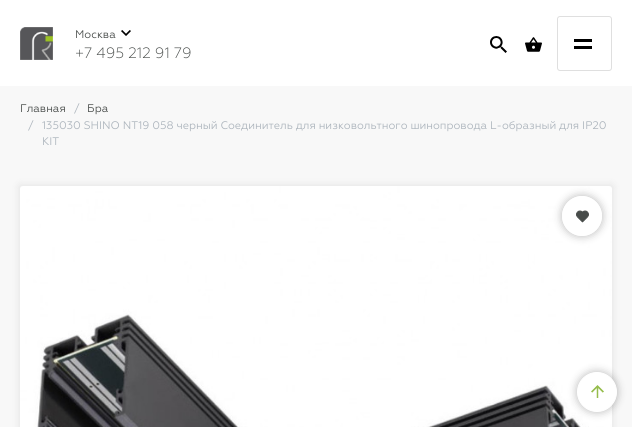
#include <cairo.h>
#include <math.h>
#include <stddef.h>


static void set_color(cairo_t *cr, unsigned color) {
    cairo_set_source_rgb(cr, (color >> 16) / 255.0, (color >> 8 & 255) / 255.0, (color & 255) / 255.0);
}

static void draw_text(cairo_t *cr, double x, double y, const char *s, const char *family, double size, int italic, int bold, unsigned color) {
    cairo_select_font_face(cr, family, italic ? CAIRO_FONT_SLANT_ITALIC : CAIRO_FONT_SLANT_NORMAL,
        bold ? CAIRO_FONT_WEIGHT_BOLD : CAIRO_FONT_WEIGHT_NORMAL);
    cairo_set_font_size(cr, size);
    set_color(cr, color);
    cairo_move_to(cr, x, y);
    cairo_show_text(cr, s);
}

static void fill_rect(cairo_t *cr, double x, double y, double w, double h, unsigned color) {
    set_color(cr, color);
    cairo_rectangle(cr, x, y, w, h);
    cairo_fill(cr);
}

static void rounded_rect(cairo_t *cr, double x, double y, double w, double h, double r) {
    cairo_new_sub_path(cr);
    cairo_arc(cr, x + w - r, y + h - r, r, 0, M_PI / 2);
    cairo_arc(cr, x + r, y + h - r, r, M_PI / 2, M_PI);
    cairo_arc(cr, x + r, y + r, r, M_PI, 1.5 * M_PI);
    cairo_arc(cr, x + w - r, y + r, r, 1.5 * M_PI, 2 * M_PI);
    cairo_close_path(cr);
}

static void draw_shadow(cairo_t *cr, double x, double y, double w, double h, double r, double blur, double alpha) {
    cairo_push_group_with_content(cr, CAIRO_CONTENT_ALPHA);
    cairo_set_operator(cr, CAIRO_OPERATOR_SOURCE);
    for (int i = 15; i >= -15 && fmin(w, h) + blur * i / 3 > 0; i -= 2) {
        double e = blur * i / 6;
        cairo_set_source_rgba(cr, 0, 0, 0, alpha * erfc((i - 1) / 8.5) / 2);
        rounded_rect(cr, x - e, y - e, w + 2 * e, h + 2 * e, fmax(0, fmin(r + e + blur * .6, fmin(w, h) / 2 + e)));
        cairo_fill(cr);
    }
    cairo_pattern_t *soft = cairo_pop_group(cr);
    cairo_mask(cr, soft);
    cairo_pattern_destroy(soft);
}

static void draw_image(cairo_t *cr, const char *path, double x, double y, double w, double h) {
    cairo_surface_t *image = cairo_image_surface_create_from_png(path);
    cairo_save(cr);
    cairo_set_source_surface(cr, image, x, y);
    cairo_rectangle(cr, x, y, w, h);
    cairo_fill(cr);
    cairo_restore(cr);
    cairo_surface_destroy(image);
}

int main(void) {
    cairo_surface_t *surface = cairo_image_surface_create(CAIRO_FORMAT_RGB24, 632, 427);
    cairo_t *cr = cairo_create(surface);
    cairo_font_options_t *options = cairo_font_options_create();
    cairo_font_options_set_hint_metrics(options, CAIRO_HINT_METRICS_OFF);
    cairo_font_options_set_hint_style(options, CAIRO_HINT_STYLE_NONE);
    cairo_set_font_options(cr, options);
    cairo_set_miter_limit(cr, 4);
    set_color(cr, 0xF8F8F8);
    cairo_paint(cr);
    fill_rect(cr, 0, 0, 632, 86, 0xFFFFFF);
    draw_image(cr, "assets/img1.png", 20, 27, 33, 33);
    draw_text(cr, 75, 38, "Москва", "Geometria", 11, 0, 0, 0x484C4A);
    draw_image(cr, "assets/img2.png", 121, 30, 10, 6);
    draw_text(cr, 75, 58, "+7 495 212 91 79", "Geometria Light", 15, 0, 0, 0x484C4A);
    draw_image(cr, "assets/img3.png", 490, 36, 17, 17);
    draw_image(cr, "assets/img4.png", 525, 37, 17, 15);
    rounded_rect(cr, 557.5, 16.5, 54, 54, 2.5);
    set_color(cr, 0xDFDFDF);
    cairo_set_line_width(cr, 1);
    cairo_stroke(cr);
    fill_rect(cr, 574, 39, 18, 3, 0x000000);
    fill_rect(cr, 574, 46, 18, 3, 0x000000);
    draw_text(cr, 20, 112, "Главная", "Geometria", 11, 0, 0, 0x484C4A);
    draw_text(cr, 74, 112, "/", "Geometria", 11, 0, 0, 0xADB5BD);
    draw_text(cr, 87, 112, "Бра", "Geometria", 11, 0, 0, 0x484C4A);
    draw_text(cr, 28, 129, "/", "Geometria", 11, 0, 0, 0xADB5BD);
    draw_text(cr, 42, 129, "135030 SHINO NT19 058 черный Соединитель для низковольтного шинопровода L-образный для IP20", "Geometria", 11, 0, 0, 0xADB5BD);
    draw_text(cr, 42, 145, "KIT", "Geometria", 11, 0, 0, 0xADB5BD);
    set_color(cr, 0x000000);
    draw_shadow(cr, 20, 186, 592, 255, 0, 4.5, 0.1);
    draw_image(cr, "assets/img6.png", 20, 186, 592, 241);
    cairo_save(cr);
    cairo_set_fill_rule(cr, CAIRO_FILL_RULE_EVEN_ODD);
    cairo_new_path(cr);
    cairo_move_to(cr, 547, 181);
    cairo_line_to(cr, 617, 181);
    cairo_line_to(cr, 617, 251);
    cairo_line_to(cr, 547, 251);
    cairo_close_path(cr);
    cairo_move_to(cr, 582, 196);
    cairo_curve_to(cr, 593, 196, 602, 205, 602, 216);
    cairo_curve_to(cr, 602, 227, 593, 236, 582, 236);
    cairo_curve_to(cr, 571, 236, 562, 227, 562, 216);
    cairo_curve_to(cr, 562, 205, 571, 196, 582, 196);
    cairo_close_path(cr);
    cairo_clip(cr);
    draw_shadow(cr, 562, 196, 40, 40, 20, 4.5, 0.28);
    cairo_restore(cr);
    cairo_set_source_rgba(cr, 1, 1, 1, 0.5);
    cairo_arc(cr, 582, 216, 20, 0, 2 * M_PI);
    cairo_fill(cr);
    draw_image(cr, "assets/img5.png", 576, 210, 13, 13);
    set_color(cr, 0x000000);
    draw_shadow(cr, 577, 372, 40, 40, 20, 4.5, 0.28);
    set_color(cr, 0xFFFFFF);
    cairo_arc(cr, 597, 392, 19.5, 0, 2 * M_PI);
    cairo_fill_preserve(cr);
    cairo_stroke(cr);
    draw_image(cr, "assets/img7.png", 591, 385, 13, 13);
    cairo_surface_write_to_png(surface, "output.png");
    cairo_font_options_destroy(options);
    cairo_destroy(cr);
    cairo_surface_destroy(surface);
    return 0;
}
